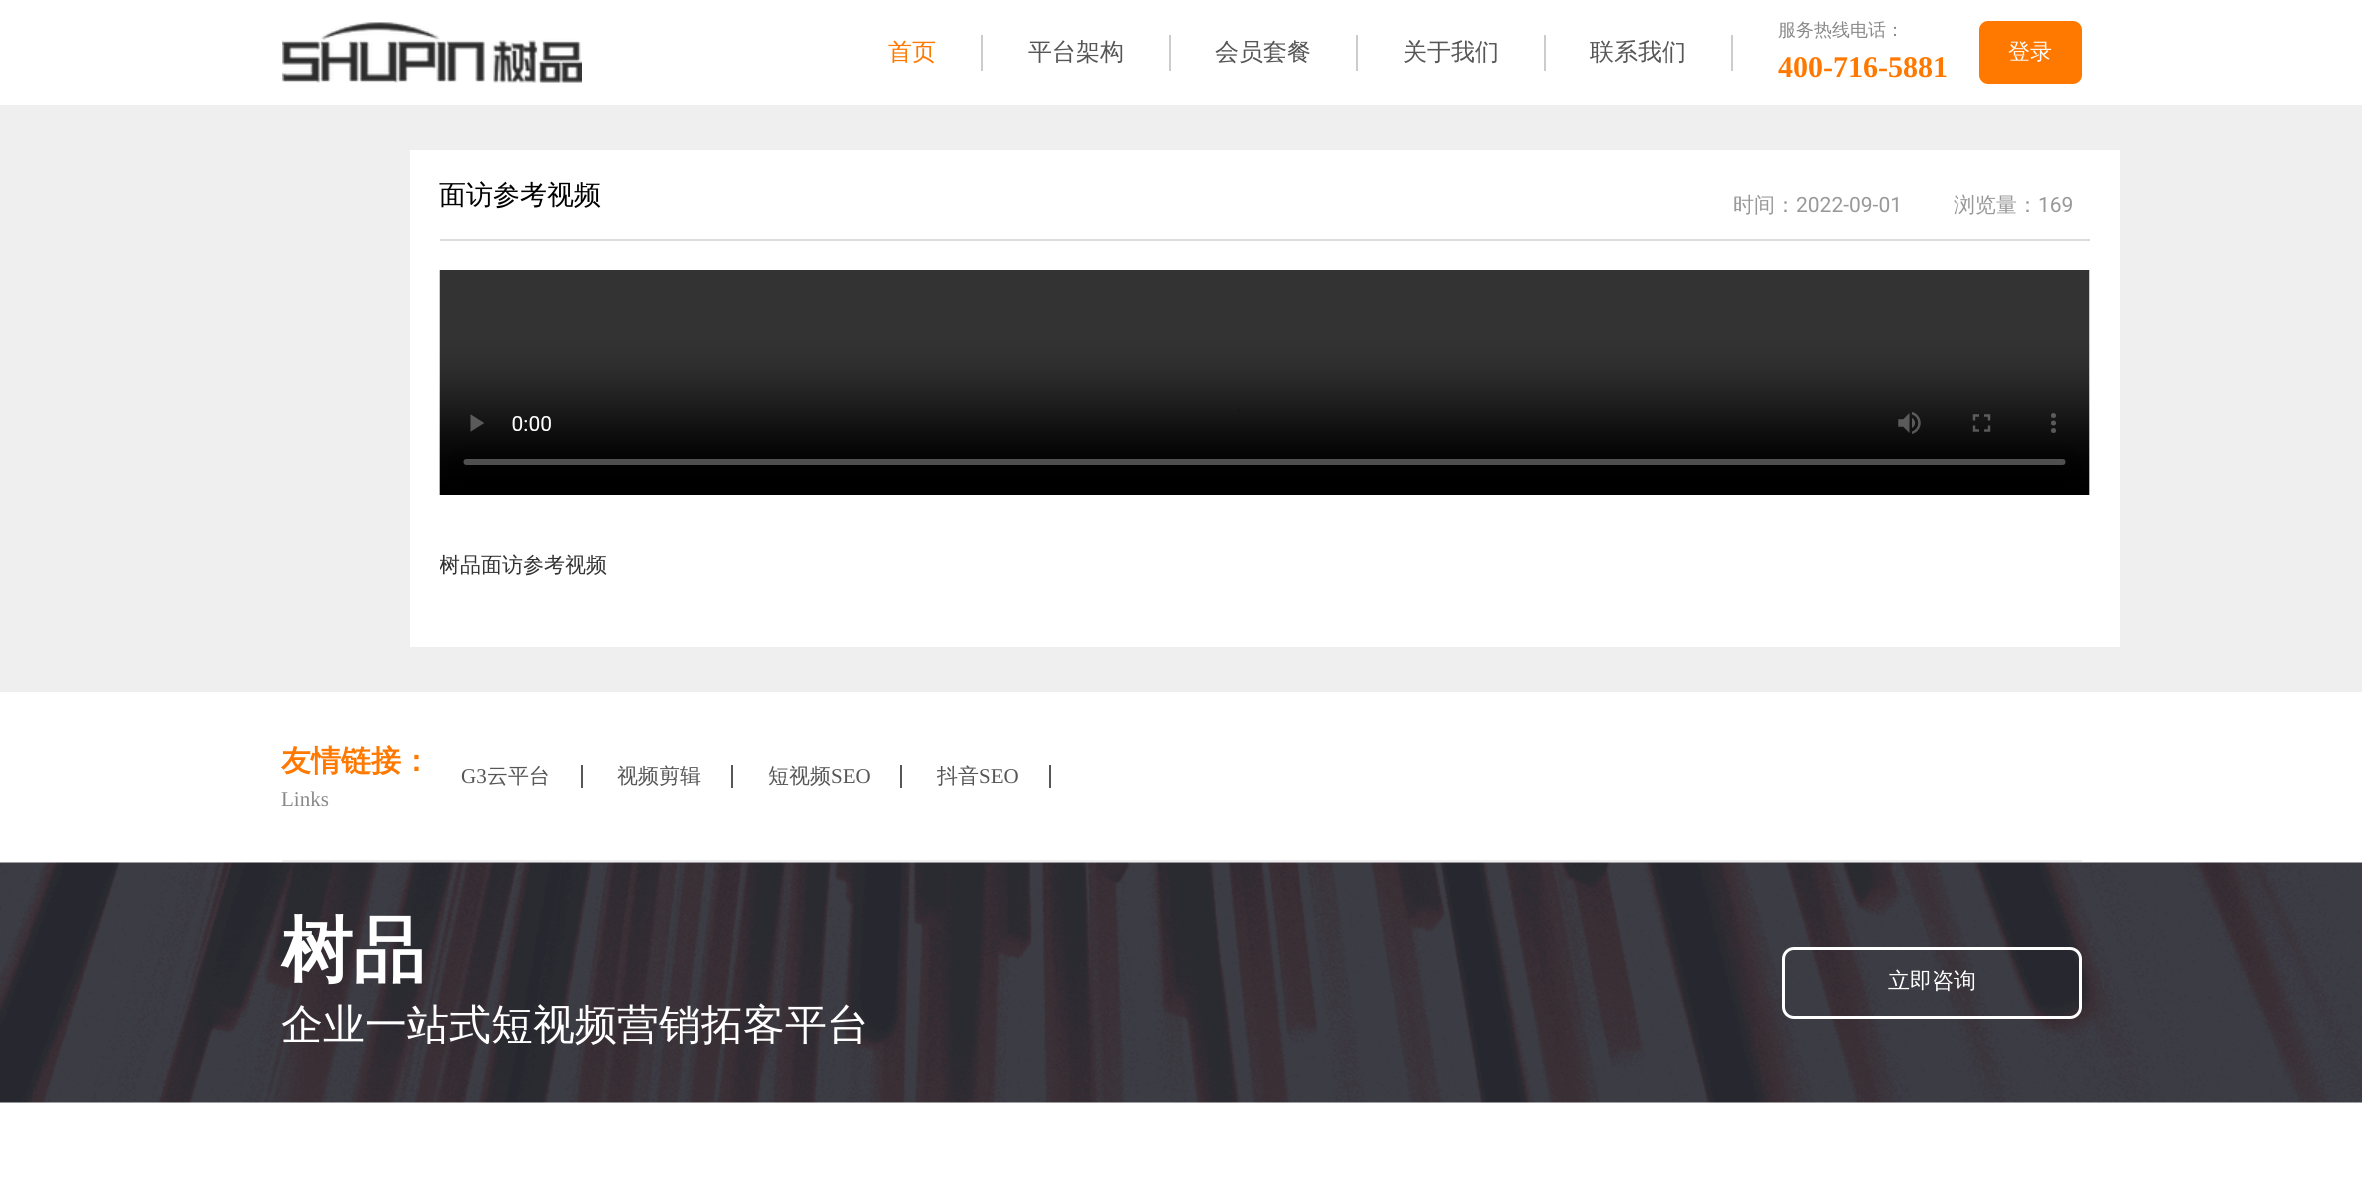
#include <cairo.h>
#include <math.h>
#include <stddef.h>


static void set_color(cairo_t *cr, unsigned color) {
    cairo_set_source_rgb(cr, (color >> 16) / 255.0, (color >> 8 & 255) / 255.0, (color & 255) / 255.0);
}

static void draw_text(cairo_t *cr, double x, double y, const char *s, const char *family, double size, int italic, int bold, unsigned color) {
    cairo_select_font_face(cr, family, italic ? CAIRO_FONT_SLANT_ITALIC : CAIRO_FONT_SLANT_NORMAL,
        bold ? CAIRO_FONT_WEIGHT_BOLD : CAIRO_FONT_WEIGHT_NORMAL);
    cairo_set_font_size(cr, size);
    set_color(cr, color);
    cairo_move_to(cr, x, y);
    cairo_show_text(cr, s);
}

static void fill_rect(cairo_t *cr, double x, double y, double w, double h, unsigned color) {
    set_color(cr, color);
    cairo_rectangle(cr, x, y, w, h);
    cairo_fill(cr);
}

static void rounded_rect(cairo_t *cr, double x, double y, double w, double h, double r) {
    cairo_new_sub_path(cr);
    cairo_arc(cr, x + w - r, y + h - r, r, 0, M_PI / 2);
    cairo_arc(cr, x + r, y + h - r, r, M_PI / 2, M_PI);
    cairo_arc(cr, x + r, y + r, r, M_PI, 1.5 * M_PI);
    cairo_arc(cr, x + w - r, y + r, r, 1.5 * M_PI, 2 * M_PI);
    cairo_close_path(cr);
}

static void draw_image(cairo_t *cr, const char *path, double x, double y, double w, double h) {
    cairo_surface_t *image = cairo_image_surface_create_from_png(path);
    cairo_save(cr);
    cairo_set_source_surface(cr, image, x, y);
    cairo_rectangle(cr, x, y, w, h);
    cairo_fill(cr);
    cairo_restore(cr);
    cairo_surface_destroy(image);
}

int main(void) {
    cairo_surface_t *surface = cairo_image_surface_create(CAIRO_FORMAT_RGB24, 2362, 1197);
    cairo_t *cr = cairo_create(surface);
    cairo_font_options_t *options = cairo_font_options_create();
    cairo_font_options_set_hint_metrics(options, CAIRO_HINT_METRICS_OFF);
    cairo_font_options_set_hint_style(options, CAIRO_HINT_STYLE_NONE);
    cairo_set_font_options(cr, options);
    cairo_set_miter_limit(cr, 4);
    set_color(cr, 0xFFFFFF);
    cairo_paint(cr);
    draw_image(cr, "assets/img1.png", 282, 22, 300, 61);
    fill_rect(cr, 981, 35, 2, 36, 0xCCCCCC);
    draw_text(cr, 888, 60, "首页", "WenQuanYi Zen Hei Medium", 24, 0, 0, 0xFF7800);
    fill_rect(cr, 1169, 35, 2, 36, 0xCCCCCC);
    draw_text(cr, 1028, 60, "平台架构", "WenQuanYi Zen Hei Medium", 24, 0, 0, 0x565656);
    fill_rect(cr, 1356, 35, 2, 36, 0xCCCCCC);
    draw_text(cr, 1215, 60, "会员套餐", "WenQuanYi Zen Hei Medium", 24, 0, 0, 0x565656);
    fill_rect(cr, 1544, 35, 2, 36, 0xCCCCCC);
    draw_text(cr, 1403, 60, "关于我们", "WenQuanYi Zen Hei Medium", 24, 0, 0, 0x565656);
    fill_rect(cr, 1731, 35, 2, 36, 0xCCCCCC);
    draw_text(cr, 1590, 60, "联系我们", "WenQuanYi Zen Hei Medium", 24, 0, 0, 0x565656);
    draw_text(cr, 1778, 36, "服务热线电话：", "WenQuanYi Zen Hei Medium", 18, 0, 0, 0x898989);
    draw_text(cr, 1778, 77, "400-716-5881", "Liberation Serif", 30, 0, 1, 0xFF7800);
    rounded_rect(cr, 1979, 21, 103, 63, 9);
    cairo_fill(cr);
    draw_text(cr, 2008, 59, "登录", "WenQuanYi Zen Hei Medium", 22, 0, 0, 0xFFFFFF);
    fill_rect(cr, 0, 105, 2362, 587, 0xEFEFEF);
    fill_rect(cr, 410, 150, 1710, 497, 0xFFFFFF);
    fill_rect(cr, 440, 239, 1650, 2, 0xDDDDDD);
    draw_text(cr, 439, 204, "面访参考视频", "WenQuanYi Zen Hei Medium", 27, 0, 0, 0x000000);
    draw_text(cr, 1733, 212, "时间：", "WenQuanYi Zen Hei Medium", 21, 0, 0, 0x999999);
    draw_text(cr, 1796, 212, "2022-09-01", "Roboto", 21, 0, 0, 0x999999);
    draw_text(cr, 1954, 212, "浏览量：", "WenQuanYi Zen Hei Medium", 21, 0, 0, 0x999999);
    draw_text(cr, 2038, 212, "169", "Roboto", 21, 0, 0, 0x999999);
    draw_image(cr, "assets/img2.png", 439, 270, 1651, 225);
    cairo_save(cr);
    cairo_rectangle(cr, 440, 542, 1650, 45);
    cairo_clip(cr);
    draw_text(cr, 439, 572, "树品面访参考视频", "WenQuanYi Zen Hei Medium", 21, 0, 0, 0x333333);
    cairo_restore(cr);
    fill_rect(cr, 282, 860, 1800, 2, 0xEEEEEE);
    draw_text(cr, 281, 771, "友情链接：", "WenQuanYi Zen Hei", 30, 0, 1, 0xFF7800);
    draw_text(cr, 281, 806, "Links", "Liberation Serif", 21, 0, 0, 0x898989);
    draw_text(cr, 461, 783, "G3", "Liberation Serif", 21, 0, 0, 0x565656);
    draw_text(cr, 487, 783, "云平台", "WenQuanYi Zen Hei Medium", 21, 0, 0, 0x565656);
    fill_rect(cr, 581, 765, 2, 23, 0x565656);
    draw_text(cr, 617, 783, "视频剪辑", "WenQuanYi Zen Hei Medium", 21, 0, 0, 0x565656);
    fill_rect(cr, 731, 765, 2, 23, 0x565656);
    draw_text(cr, 768, 783, "短视频", "WenQuanYi Zen Hei Medium", 21, 0, 0, 0x565656);
    draw_text(cr, 831, 783, "SEO", "Liberation Serif", 21, 0, 0, 0x565656);
    fill_rect(cr, 900, 765, 2, 23, 0x565656);
    draw_text(cr, 937, 783, "抖音", "WenQuanYi Zen Hei Medium", 21, 0, 0, 0x565656);
    draw_text(cr, 979, 783, "SEO", "Liberation Serif", 21, 0, 0, 0x565656);
    fill_rect(cr, 1049, 765, 2, 23, 0x565656);
    draw_image(cr, "assets/img3.png", 0, 862, 2362, 241);
    draw_text(cr, 281, 975, "树品", "WenQuanYi Zen Hei", 72, 0, 1, 0xFFFFFF);
    draw_text(cr, 281, 1039, "企业一站式短视频营销拓客平台", "WenQuanYi Zen Hei Medium", 42, 0, 0, 0xFFFFFF);
    rounded_rect(cr, 1783.5, 948.5, 297, 69, 10.5);
    cairo_set_line_width(cr, 3);
    cairo_stroke(cr);
    draw_text(cr, 1888, 988, "立即咨询", "WenQuanYi Zen Hei Medium", 22, 0, 0, 0xFFFFFF);
    cairo_surface_write_to_png(surface, "output.png");
    cairo_font_options_destroy(options);
    cairo_destroy(cr);
    cairo_surface_destroy(surface);
    return 0;
}
